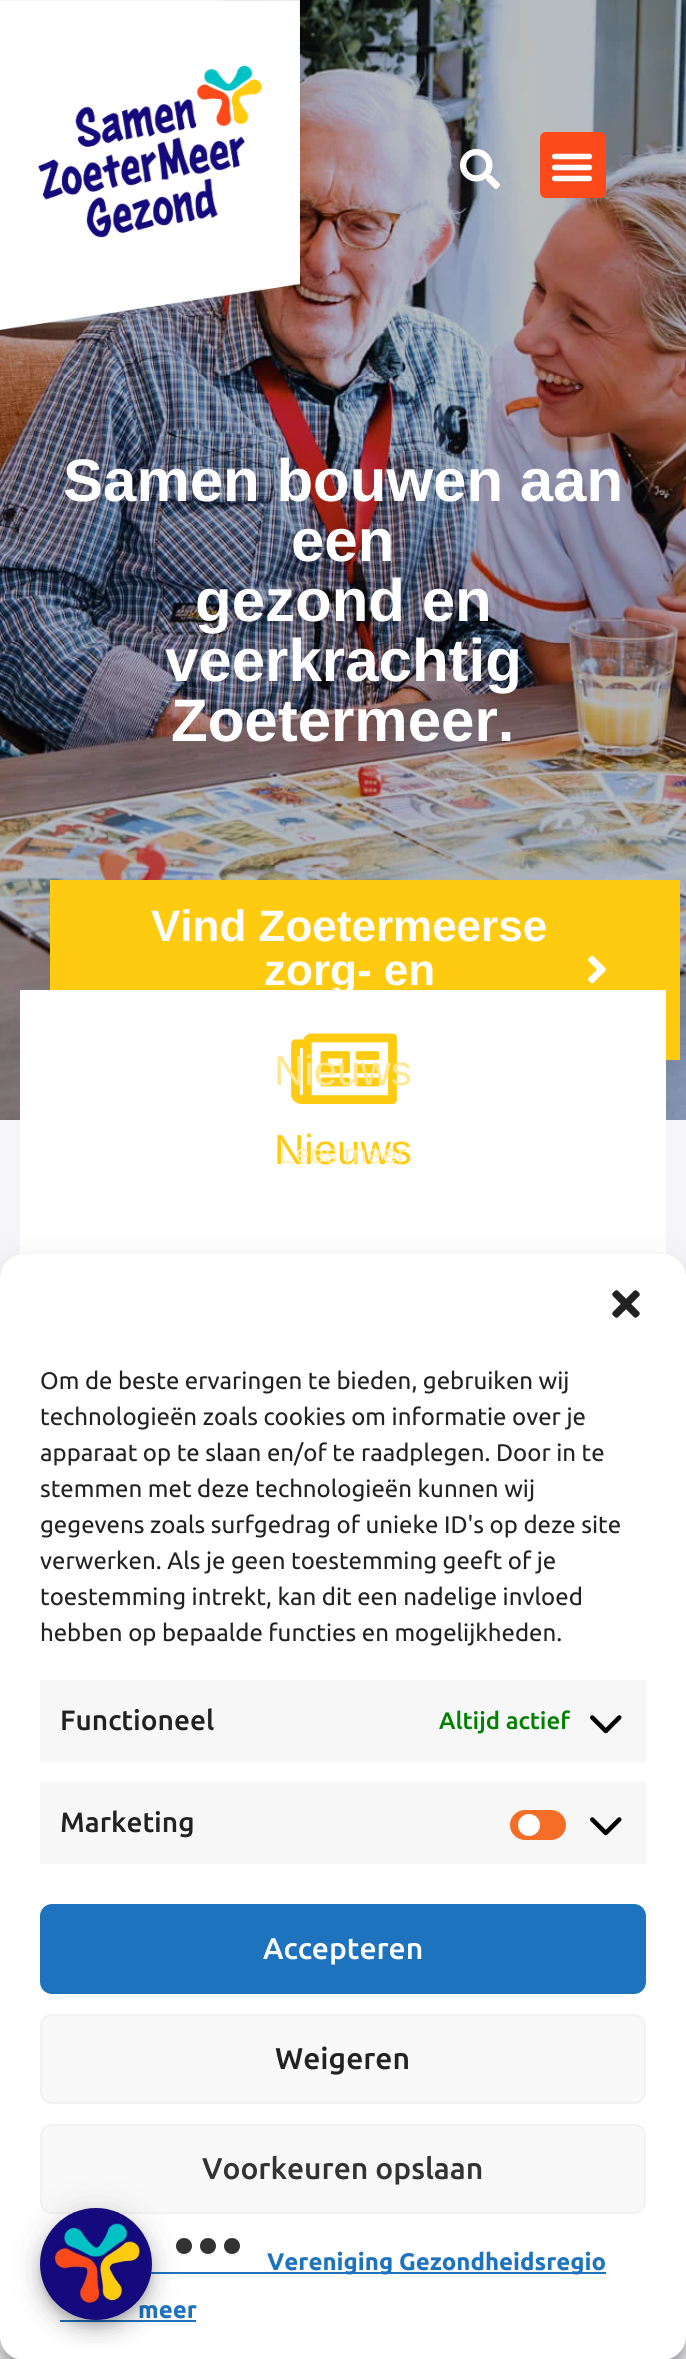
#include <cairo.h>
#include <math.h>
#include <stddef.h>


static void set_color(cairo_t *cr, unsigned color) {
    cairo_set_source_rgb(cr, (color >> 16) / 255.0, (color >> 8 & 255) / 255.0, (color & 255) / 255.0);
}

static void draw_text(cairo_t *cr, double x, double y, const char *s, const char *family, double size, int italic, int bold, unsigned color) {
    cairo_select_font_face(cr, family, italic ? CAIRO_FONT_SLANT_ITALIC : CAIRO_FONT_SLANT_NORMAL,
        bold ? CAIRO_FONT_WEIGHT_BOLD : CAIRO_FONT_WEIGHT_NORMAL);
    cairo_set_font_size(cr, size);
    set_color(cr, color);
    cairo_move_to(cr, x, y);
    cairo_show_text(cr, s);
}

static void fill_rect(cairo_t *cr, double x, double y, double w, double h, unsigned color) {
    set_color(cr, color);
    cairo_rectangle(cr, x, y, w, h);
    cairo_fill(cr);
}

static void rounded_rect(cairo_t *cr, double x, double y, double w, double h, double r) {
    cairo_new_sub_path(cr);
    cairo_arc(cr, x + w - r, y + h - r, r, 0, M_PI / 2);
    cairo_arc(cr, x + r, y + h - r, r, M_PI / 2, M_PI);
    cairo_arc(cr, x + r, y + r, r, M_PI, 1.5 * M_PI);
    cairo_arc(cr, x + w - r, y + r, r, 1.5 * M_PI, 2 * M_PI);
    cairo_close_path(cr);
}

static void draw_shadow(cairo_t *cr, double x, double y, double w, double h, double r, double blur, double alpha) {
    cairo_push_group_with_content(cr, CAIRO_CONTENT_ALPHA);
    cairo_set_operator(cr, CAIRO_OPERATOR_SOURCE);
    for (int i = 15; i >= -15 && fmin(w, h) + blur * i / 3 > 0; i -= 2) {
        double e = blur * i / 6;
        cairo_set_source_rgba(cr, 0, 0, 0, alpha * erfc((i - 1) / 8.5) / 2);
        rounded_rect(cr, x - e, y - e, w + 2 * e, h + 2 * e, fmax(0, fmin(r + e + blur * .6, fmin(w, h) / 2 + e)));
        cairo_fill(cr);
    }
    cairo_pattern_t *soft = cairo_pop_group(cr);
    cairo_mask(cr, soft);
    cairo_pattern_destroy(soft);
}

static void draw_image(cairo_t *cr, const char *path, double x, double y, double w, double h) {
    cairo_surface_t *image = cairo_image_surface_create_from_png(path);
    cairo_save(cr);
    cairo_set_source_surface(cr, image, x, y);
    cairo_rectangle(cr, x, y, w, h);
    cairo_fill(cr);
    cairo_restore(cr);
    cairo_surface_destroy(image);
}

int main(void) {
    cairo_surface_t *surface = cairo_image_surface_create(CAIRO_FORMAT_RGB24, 686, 2359);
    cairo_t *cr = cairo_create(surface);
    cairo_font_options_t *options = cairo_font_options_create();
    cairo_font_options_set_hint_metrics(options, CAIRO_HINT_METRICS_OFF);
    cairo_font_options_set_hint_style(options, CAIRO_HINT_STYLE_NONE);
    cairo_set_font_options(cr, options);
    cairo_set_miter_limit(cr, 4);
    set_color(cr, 0xFFFFFF);
    cairo_paint(cr);
    draw_image(cr, "assets/img4.png", 0, 0, 686, 1120);
    draw_image(cr, "assets/img1.png", 0, 0, 300, 330);
    draw_image(cr, "assets/img2.png", 460, 149, 40, 40);
    set_color(cr, 0xFC4A1A);
    rounded_rect(cr, 540, 132, 66, 66, 6);
    cairo_fill(cr);
    draw_image(cr, "assets/img3.png", 551, 153, 42, 29);
    draw_text(cr, 63, 501, "Samen bouwen aan", "Liberation Sans", 60, 0, 1, 0xFFFFFF);
    draw_text(cr, 291, 561, "een", "Liberation Sans", 60, 0, 1, 0xFFFFFF);
    draw_text(cr, 195, 621, "gezond en", "Liberation Sans", 60, 0, 1, 0xFFFFFF);
    draw_text(cr, 165, 681, "veerkrachtig", "Liberation Sans", 60, 0, 1, 0xFFFFFF);
    draw_text(cr, 171, 741, "Zoetermeer.", "Liberation Sans", 60, 0, 1, 0xFFFFFF);
    fill_rect(cr, 50, 880, 630, 180, 0xFFCB11);
    draw_text(cr, 151, 941, "Vind Zoetermeerse", "Liberation Sans", 44, 0, 1, 0xFFFFFF);
    draw_text(cr, 264, 985, "zorg- en", "Liberation Sans", 44, 0, 1, 0xFFFFFF);
    draw_image(cr, "assets/img5.png", 588, 955, 18, 29);
    fill_rect(cr, 0, 1120, 686, 158, 0xF6F5F9);
    fill_rect(cr, 20, 990, 646, 265, 0xFFFFFF);
    draw_image(cr, "assets/img6.png", 291, 1033, 106, 71);
    draw_text(cr, 274, 1085, "Nieuws", "Liberation Sans", 42, 0, 0, 0xFFE792);
    draw_text(cr, 274, 1164, "Nieuws", "Liberation Sans", 42, 0, 0, 0xFFCB11);
    draw_text(cr, 279, 1163, "Lees meer", "Barlow", 28, 0, 0, 0xFFEDAE);
    fill_rect(cr, 0, 2336, 686, 23, 0xF6F5F9);
    set_color(cr, 0x000000);
    draw_shadow(cr, 0, 1266, 686, 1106, 24, 6, 0.23);
    draw_shadow(cr, 0, 1274, 686, 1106, 24, 20, 0.19);
    set_color(cr, 0xFFFFFF);
    rounded_rect(cr, 0, 1254, 686, 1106, 24);
    cairo_fill(cr);
    draw_image(cr, "assets/img7.png", 612, 1290, 28, 28);
    draw_text(cr, 40, 1389, "Om de beste ervaringen te bieden, gebruiken wij", "Ubuntu", 24, 0, 0, 0x222222);
    draw_text(cr, 40, 1425, "technologieën zoals cookies om informatie over je", "Ubuntu", 24, 0, 0, 0x222222);
    draw_text(cr, 40, 1461, "apparaat op te slaan en/of te raadplegen. Door in te", "Ubuntu", 24, 0, 0, 0x222222);
    draw_text(cr, 40, 1497, "stemmen met deze technologieën kunnen wij", "Ubuntu", 24, 0, 0, 0x222222);
    draw_text(cr, 40, 1533, "gegevens zoals surfgedrag of unieke ID's op deze site", "Ubuntu", 24, 0, 0, 0x222222);
    draw_text(cr, 40, 1569, "verwerken. Als je geen toestemming geeft of je", "Ubuntu", 24, 0, 0, 0x222222);
    draw_text(cr, 40, 1605, "toestemming intrekt, kan dit een nadelige invloed", "Ubuntu", 24, 0, 0, 0x222222);
    draw_text(cr, 40, 1641, "hebben op bepaalde functies en mogelijkheden.", "Ubuntu", 24, 0, 0, 0x222222);
    fill_rect(cr, 40, 1680, 606, 82, 0xF7F7F7);
    draw_text(cr, 60, 1730, "Functioneel", "Ubuntu Medium", 28, 0, 0, 0x222222);
    draw_text(cr, 439, 1729, "Altijd actief", "Ubuntu Medium", 24, 0, 0, 0x008000);
    draw_image(cr, "assets/img8.png", 590, 1715, 32, 19);
    fill_rect(cr, 40, 1782, 606, 82, 0xF7F7F7);
    draw_text(cr, 60, 1832, "Marketing", "Ubuntu Medium", 28, 0, 0, 0x222222);
    set_color(cr, 0xF56E28);
    rounded_rect(cr, 510, 1810, 56, 30, 15);
    cairo_fill(cr);
    set_color(cr, 0xFFFFFF);
    cairo_arc(cr, 529, 1825, 11, 0, 2 * M_PI);
    cairo_fill(cr);
    draw_image(cr, "assets/img8.png", 590, 1817, 32, 19);
    set_color(cr, 0x1E73BE);
    rounded_rect(cr, 41, 1905, 604, 88, 11);
    cairo_fill_preserve(cr);
    cairo_stroke(cr);
    draw_text(cr, 263, 1959, "Accepteren", "Ubuntu Medium", 30, 0, 0, 0xFFFFFF);
    set_color(cr, 0xF9F9F9);
    rounded_rect(cr, 41, 2015, 604, 88, 11);
    cairo_fill_preserve(cr);
    set_color(cr, 0xF2F2F2);
    cairo_stroke(cr);
    draw_text(cr, 275, 2069, "Weigeren", "Ubuntu Medium", 30, 0, 0, 0x222222);
    set_color(cr, 0xF9F9F9);
    rounded_rect(cr, 41, 2125, 604, 88, 11);
    cairo_fill_preserve(cr);
    set_color(cr, 0xF2F2F2);
    cairo_stroke(cr);
    draw_text(cr, 202, 2179, "Voorkeuren opslaan", "Ubuntu Medium", 30, 0, 0, 0x333333);
    fill_rect(cr, 151, 2272, 455, 2, 0x1E73BE);
    draw_text(cr, 267, 2270, "Vereniging Gezondheidsregio", "Ubuntu", 24, 0, 1, 0x1E73BE);
    draw_text(cr, 138, 2318, "meer", "Ubuntu", 24, 0, 1, 0x1E73BE);
    fill_rect(cr, 60, 2320, 136, 2, 0x1E73BE);
    set_color(cr, 0x333333);
    cairo_new_path(cr);
    cairo_arc(cr, 184, 2246, 8, 0, 2 * M_PI);
    cairo_fill(cr);
    cairo_arc(cr, 208, 2246, 8, 0, 2 * M_PI);
    cairo_fill(cr);
    set_color(cr, 0x000000);
    draw_shadow(cr, 40, 2210, 112, 112, 56, 18, 0.12);
    draw_shadow(cr, 40, 2220, 112, 112, 56, 10, 0.14);
    draw_shadow(cr, 42, 2216, 108, 108, 54, 5, 0.2);
    set_color(cr, 0xE0E0E0);
    cairo_arc(cr, 96, 2264, 56, 0, 2 * M_PI);
    cairo_fill(cr);
    draw_image(cr, "assets/img9.png", 40, 2208, 112, 112);
    set_color(cr, 0x333333);
    cairo_arc(cr, 232, 2246, 8, 0, 2 * M_PI);
    cairo_fill(cr);
    cairo_surface_write_to_png(surface, "output.png");
    cairo_font_options_destroy(options);
    cairo_destroy(cr);
    cairo_surface_destroy(surface);
    return 0;
}
